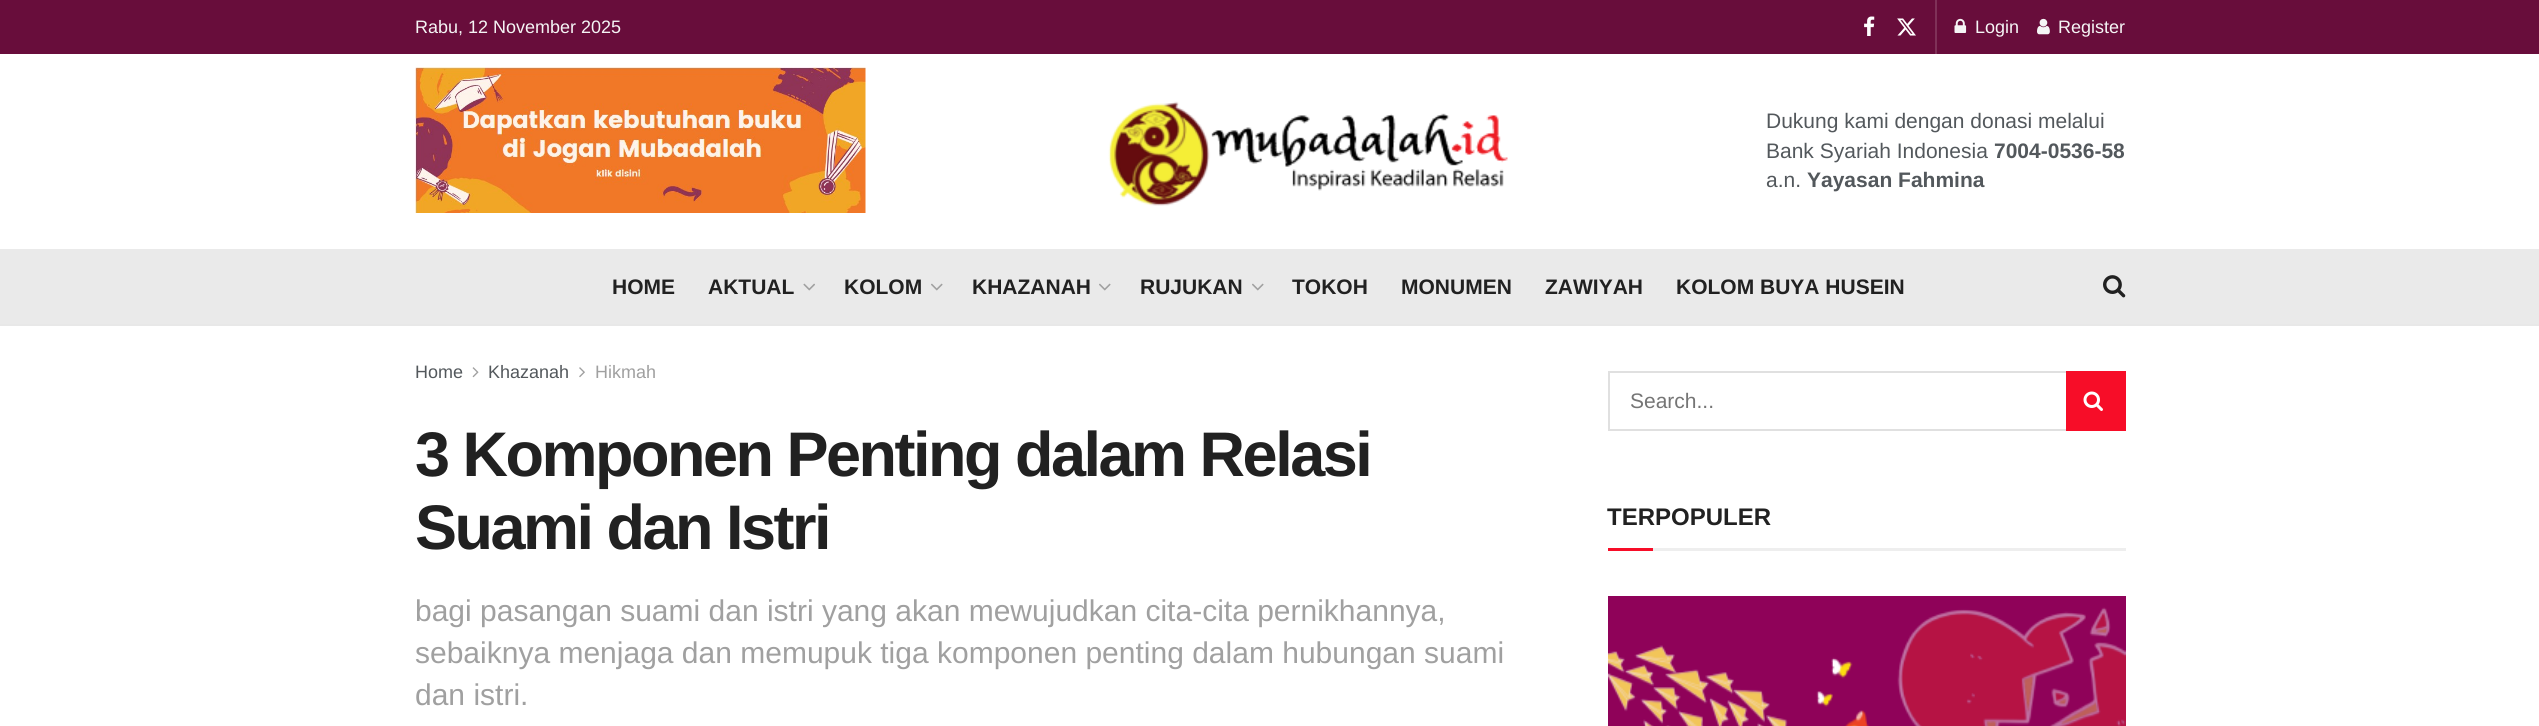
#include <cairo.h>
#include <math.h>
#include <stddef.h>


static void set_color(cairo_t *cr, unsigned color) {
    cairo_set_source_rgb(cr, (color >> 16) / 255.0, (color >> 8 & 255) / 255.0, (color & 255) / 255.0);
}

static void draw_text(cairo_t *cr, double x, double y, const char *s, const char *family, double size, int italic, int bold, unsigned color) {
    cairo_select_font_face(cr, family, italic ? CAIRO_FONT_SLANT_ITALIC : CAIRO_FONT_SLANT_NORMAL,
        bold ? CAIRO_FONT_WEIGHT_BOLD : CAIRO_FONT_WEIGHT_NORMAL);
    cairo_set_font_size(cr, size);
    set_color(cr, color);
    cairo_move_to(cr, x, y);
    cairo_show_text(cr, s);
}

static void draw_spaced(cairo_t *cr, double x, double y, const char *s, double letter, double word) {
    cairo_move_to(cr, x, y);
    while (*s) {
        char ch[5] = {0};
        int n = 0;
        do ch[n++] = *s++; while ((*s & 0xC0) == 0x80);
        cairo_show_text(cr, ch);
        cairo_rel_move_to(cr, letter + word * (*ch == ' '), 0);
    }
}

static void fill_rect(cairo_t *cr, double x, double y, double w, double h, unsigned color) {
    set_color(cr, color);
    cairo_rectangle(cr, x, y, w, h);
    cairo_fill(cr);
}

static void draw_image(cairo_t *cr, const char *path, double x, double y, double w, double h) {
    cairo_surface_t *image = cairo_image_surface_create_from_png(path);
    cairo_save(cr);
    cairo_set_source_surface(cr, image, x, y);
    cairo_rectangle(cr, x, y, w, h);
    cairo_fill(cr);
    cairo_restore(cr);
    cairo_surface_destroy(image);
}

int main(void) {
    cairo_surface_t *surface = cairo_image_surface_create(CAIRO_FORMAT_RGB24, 2539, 726);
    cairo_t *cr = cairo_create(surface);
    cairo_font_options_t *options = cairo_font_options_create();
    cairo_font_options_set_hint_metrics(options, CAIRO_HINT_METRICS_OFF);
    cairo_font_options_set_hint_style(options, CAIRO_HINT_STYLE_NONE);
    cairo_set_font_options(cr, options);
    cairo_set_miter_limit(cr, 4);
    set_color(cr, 0xFFFFFF);
    cairo_paint(cr);
    fill_rect(cr, 0, 0, 2539, 54, 0x680D3B);
    fill_rect(cr, 1935, 0, 2, 54, 0x7F3158);
    draw_text(cr, 415, 33, "Rabu, 12 November 2025", "Liberation Sans", 18, 0, 0, 0xF5F5F5);
    draw_image(cr, "assets/img1.png", 1864, 16, 11, 20);
    draw_image(cr, "assets/img2.png", 1897, 18, 19, 18);
    draw_image(cr, "assets/img3.png", 1954, 18, 13, 15);
    draw_text(cr, 1975, 33, "Login", "Liberation Sans", 18, 0, 0, 0xF5F5F5);
    draw_image(cr, "assets/img4.png", 2037, 18, 13, 17);
    draw_text(cr, 2058, 33, "Register", "Liberation Sans", 18, 0, 0, 0xF5F5F5);
    draw_image(cr, "assets/img5.png", 415, 67, 451, 146);
    draw_image(cr, "assets/img6.png", 1108, 101, 400, 105);
    draw_text(cr, 1766, 128, "Dukung kami dengan donasi melalui", "Liberation Sans", 21, 0, 0, 0x53585C);
    draw_text(cr, 1766, 158, "Bank Syariah Indonesia", "Liberation Sans", 21, 0, 0, 0x53585C);
    draw_text(cr, 1994, 158, "7004-0536-58", "Liberation Sans", 21, 0, 1, 0x53585C);
    draw_text(cr, 1766, 187, "a.n.", "Liberation Sans", 21, 0, 0, 0x53585C);
    draw_text(cr, 1807, 187, "Yayasan Fahmina", "Liberation Sans", 21, 0, 1, 0x53585C);
    fill_rect(cr, 0, 249, 2539, 75, 0xEAEAEA);
    fill_rect(cr, 0, 324, 2539, 2, 0xE8E8E8);
    draw_text(cr, 612, 294, "HOME", "Liberation Sans", 21, 0, 1, 0x212121);
    draw_text(cr, 708, 294, "AKTUAL", "Liberation Sans", 21, 0, 1, 0x212121);
    draw_image(cr, "assets/img7.png", 803, 283, 12, 8);
    draw_text(cr, 844, 294, "KOLOM", "Liberation Sans", 21, 0, 1, 0x212121);
    draw_image(cr, "assets/img8.png", 931, 283, 12, 8);
    draw_text(cr, 972, 294, "KHAZANAH", "Liberation Sans", 21, 0, 1, 0x212121);
    draw_image(cr, "assets/img8.png", 1099, 283, 12, 8);
    draw_text(cr, 1140, 294, "RUJUKAN", "Liberation Sans", 21, 0, 1, 0x212121);
    draw_image(cr, "assets/img8.png", 1252, 283, 12, 8);
    draw_text(cr, 1292, 294, "TOKOH", "Liberation Sans", 21, 0, 1, 0x212121);
    draw_text(cr, 1401, 294, "MONUMEN", "Liberation Sans", 21, 0, 1, 0x212121);
    draw_text(cr, 1545, 294, "ZAWIYAH", "Liberation Sans", 21, 0, 1, 0x212121);
    draw_text(cr, 1676, 294, "KOLOM BUYA HUSEIN", "Liberation Sans", 21, 0, 1, 0x212121);
    draw_image(cr, "assets/img9.png", 2103, 275, 23, 23);
    draw_text(cr, 415, 378, "Home", "Liberation Sans", 18, 0, 0, 0x53585C);
    draw_image(cr, "assets/img10.png", 472, 367, 7, 11);
    draw_text(cr, 488, 378, "Khazanah", "Liberation Sans", 18, 0, 0, 0x53585C);
    draw_image(cr, "assets/img11.png", 579, 367, 6, 11);
    draw_text(cr, 595, 378, "Hikmah", "Liberation Sans", 18, 0, 0, 0xA0A0A0);
    cairo_select_font_face(cr, "Liberation Sans", CAIRO_FONT_SLANT_NORMAL, CAIRO_FONT_WEIGHT_BOLD);
    cairo_set_font_size(cr, 63);
    set_color(cr, 0x212121);
    draw_spaced(cr, 415, 476, "3 Komponen Penting dalam Relasi", -2.5, 0);
    draw_spaced(cr, 415, 549, "Suami dan Istri", -2.5, 0);
    draw_text(cr, 415, 621, "bagi pasangan suami dan istri yang akan mewujudkan cita-cita pernikhannya,", "Liberation Sans", 30, 0, 0, 0xA0A0A0);
    draw_text(cr, 415, 663, "sebaiknya menjaga dan memupuk tiga komponen penting dalam hubungan suami", "Liberation Sans", 30, 0, 0, 0xA0A0A0);
    draw_text(cr, 415, 705, "dan istri.", "Liberation Sans", 30, 0, 0, 0xA0A0A0);
    cairo_rectangle(cr, 1609, 372, 516, 58);
    set_color(cr, 0xE0E0E0);
    cairo_stroke(cr);
    draw_text(cr, 1630, 408, "Search...", "Liberation Sans", 21, 0, 0, 0x757575);
    fill_rect(cr, 2066, 371, 60, 60, 0xF70D28);
    draw_image(cr, "assets/img12.png", 2083, 391, 20, 20);
    fill_rect(cr, 1653, 548, 473, 3, 0xEEEEEE);
    draw_text(cr, 1607, 525, "TERPOPULER", "Liberation Sans", 24, 0, 1, 0x212121);
    fill_rect(cr, 1608, 548, 45, 3, 0xF70D28);
    draw_image(cr, "assets/img13.png", 1608, 596, 518, 130);
    cairo_surface_write_to_png(surface, "output.png");
    cairo_font_options_destroy(options);
    cairo_destroy(cr);
    cairo_surface_destroy(surface);
    return 0;
}
